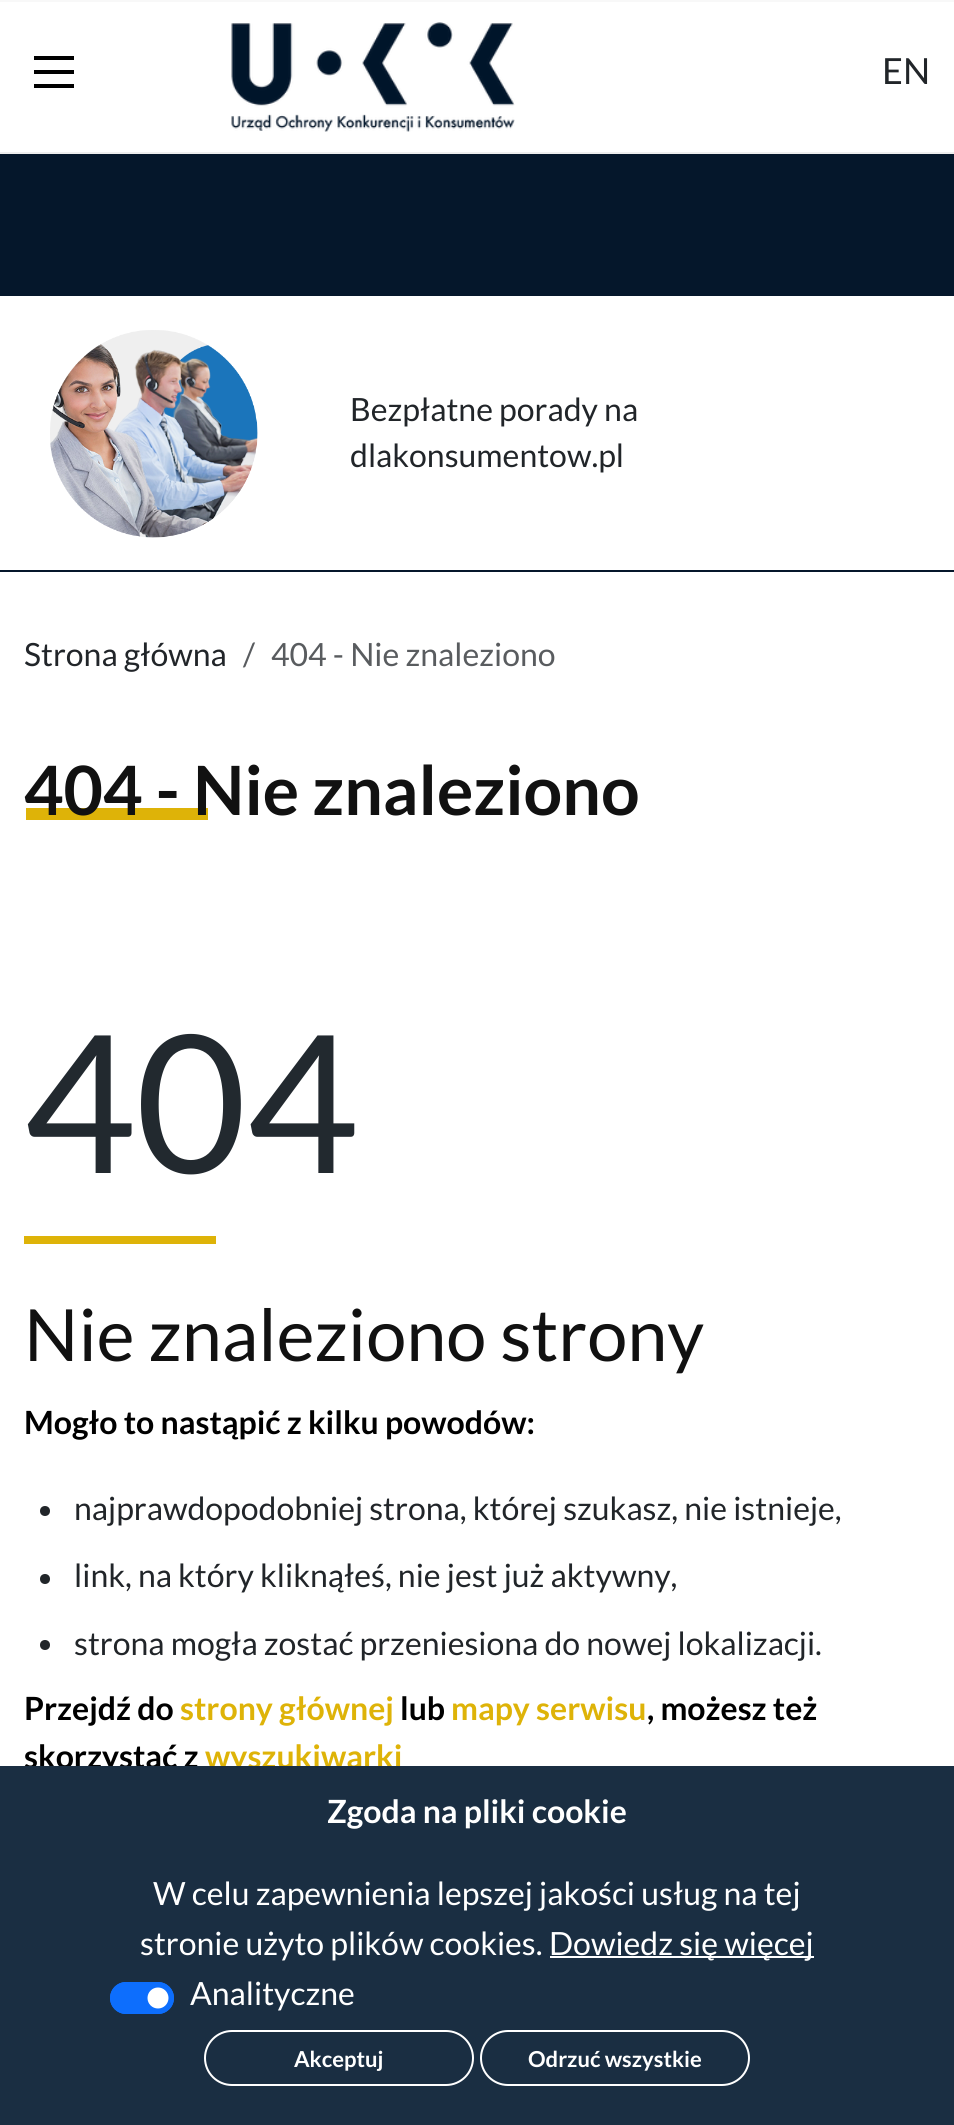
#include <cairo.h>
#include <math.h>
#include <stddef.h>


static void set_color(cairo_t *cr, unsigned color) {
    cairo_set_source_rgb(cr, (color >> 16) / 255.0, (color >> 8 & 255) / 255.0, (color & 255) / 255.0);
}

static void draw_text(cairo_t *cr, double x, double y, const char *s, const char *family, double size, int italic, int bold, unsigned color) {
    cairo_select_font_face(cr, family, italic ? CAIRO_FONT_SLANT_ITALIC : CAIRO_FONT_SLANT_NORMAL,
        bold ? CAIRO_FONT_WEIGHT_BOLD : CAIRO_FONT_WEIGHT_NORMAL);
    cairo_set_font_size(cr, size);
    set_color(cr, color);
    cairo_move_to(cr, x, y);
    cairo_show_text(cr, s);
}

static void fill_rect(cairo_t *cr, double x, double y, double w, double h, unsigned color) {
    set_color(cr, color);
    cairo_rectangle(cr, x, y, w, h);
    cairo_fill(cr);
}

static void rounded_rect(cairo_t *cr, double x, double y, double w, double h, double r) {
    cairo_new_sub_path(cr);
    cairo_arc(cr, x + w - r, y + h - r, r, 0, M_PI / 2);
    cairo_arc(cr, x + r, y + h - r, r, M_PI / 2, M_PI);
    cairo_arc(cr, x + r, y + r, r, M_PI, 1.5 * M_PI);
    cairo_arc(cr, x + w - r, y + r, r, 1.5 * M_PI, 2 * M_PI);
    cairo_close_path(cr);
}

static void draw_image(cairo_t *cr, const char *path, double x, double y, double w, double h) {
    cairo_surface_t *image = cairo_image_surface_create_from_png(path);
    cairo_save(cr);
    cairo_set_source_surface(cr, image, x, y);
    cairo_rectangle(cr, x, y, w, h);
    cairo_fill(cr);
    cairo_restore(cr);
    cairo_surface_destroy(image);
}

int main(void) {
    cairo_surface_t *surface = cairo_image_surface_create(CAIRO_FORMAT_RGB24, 954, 2125);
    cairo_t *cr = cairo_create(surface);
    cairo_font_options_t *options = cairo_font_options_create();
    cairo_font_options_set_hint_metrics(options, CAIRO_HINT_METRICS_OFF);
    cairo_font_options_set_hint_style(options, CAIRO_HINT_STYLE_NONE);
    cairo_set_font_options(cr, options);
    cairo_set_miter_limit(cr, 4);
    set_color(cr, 0xFFFFFF);
    cairo_paint(cr);
    fill_rect(cr, 0, 152, 954, 2, 0xEEEEEE);
    fill_rect(cr, 0, 0, 954, 2, 0xF8F8F8);
    fill_rect(cr, 34, 56, 40, 4, 0x000000);
    fill_rect(cr, 34, 70, 40, 4, 0x000000);
    fill_rect(cr, 34, 84, 40, 4, 0x000000);
    draw_image(cr, "assets/img1.png", 231, 22, 284, 110);
    draw_text(cr, 882, 84, "EN", "Lato", 36, 0, 0, 0x212529);
    fill_rect(cr, 0, 154, 954, 142, 0x05172B);
    fill_rect(cr, 0, 570, 954, 2, 0x05172B);
    draw_image(cr, "assets/img2.png", 50, 330, 208, 208);
    draw_text(cr, 350, 421, "Bezpłatne porady na", "Lato", 32, 0, 0, 0x212529);
    draw_text(cr, 350, 467, "dlakonsumentow.pl", "Lato", 32, 0, 0, 0x212529);
    draw_text(cr, 24, 666, "Strona główna", "Lato", 32, 0, 0, 0x212529);
    draw_text(cr, 243, 666, "/", "Lato", 32, 0, 0, 0x595C5F);
    draw_text(cr, 271, 666, "404 - Nie znaleziono", "Lato", 32, 0, 0, 0x595C5F);
    fill_rect(cr, 26, 808, 182, 12, 0xDEB308);
    draw_text(cr, 24, 815, "404 - Nie znaleziono", "Lato", 68, 0, 1, 0x111111);
    draw_text(cr, 24, 1173, "404", "Lato", 192, 0, 0, 0x22292F);
    fill_rect(cr, 24, 1236, 192, 8, 0xDEB308);
    draw_text(cr, 24, 1361, "Nie znaleziono strony", "Lato", 72, 0, 0, 0x111111);
    draw_text(cr, 24, 1434, "Mogło to nastąpić z kilku powodów:", "Lato", 32, 0, 1, 0x000000);
    set_color(cr, 0x212529);
    cairo_new_path(cr);
    cairo_arc(cr, 45, 1511, 5, 0, 2 * M_PI);
    cairo_fill(cr);
    draw_text(cr, 74, 1520, "najprawdopodobniej strona, której szukasz, nie istnieje,", "Lato", 32, 0, 0, 0x212529);
    cairo_new_path(cr);
    cairo_arc(cr, 45, 1579, 5, 0, 2 * M_PI);
    cairo_fill(cr);
    draw_text(cr, 74, 1587, "link, na który kliknąłeś, nie jest już aktywny,", "Lato", 32, 0, 0, 0x212529);
    cairo_new_path(cr);
    cairo_arc(cr, 45, 1645, 5, 0, 2 * M_PI);
    cairo_fill(cr);
    draw_text(cr, 74, 1655, "strona mogła zostać przeniesiona do nowej lokalizacji.", "Lato", 32, 0, 0, 0x212529);
    draw_text(cr, 24, 1720, "Przejdź do", "Lato", 32, 0, 1, 0x000000);
    draw_text(cr, 180, 1720, "strony głównej", "Lato", 32, 0, 1, 0xDEB308);
    draw_text(cr, 400, 1720, "lub", "Lato", 32, 0, 1, 0x000000);
    draw_text(cr, 451, 1720, "mapy serwisu", "Lato", 32, 0, 1, 0xDEB308);
    draw_text(cr, 647, 1720, ", możesz też", "Lato", 32, 0, 1, 0x000000);
    draw_text(cr, 24, 1768, "skorzystać z", "Lato", 32, 0, 1, 0x000000);
    draw_text(cr, 205, 1768, "wyszukiwarki", "Lato", 32, 0, 1, 0xDEB308);
    fill_rect(cr, 0, 1766, 954, 359, 0x1A2E42);
    draw_text(cr, 327, 1823, "Zgoda na pliki cookie", "Lato", 32, 0, 1, 0xFFFFFF);
    draw_text(cr, 153, 1905, "W celu zapewnienia lepszej jakości usług na tej", "Lato", 32, 0, 0, 0xFFFFFF);
    draw_text(cr, 140, 1955, "stronie użyto plików cookies.", "Lato", 32, 0, 0, 0xFFFFFF);
    fill_rect(cr, 550, 1956, 264, 2, 0xFFFFFF);
    draw_text(cr, 549, 1955, "Dowiedz się więcej", "Lato", 32, 0, 0, 0xFFFFFF);
    set_color(cr, 0x0D6EFD);
    rounded_rect(cr, 110, 1982, 64, 32, 16);
    cairo_fill(cr);
    set_color(cr, 0xFFFFFF);
    cairo_arc(cr, 158, 1998, 10.5, 0, 2 * M_PI);
    cairo_fill(cr);
    rounded_rect(cr, 111, 1983, 62, 30, 15);
    set_color(cr, 0x0D6EFD);
    cairo_stroke(cr);
    draw_text(cr, 190, 2005, "Analityczne", "Lato", 32, 0, 0, 0xFFFFFF);
    rounded_rect(cr, 205, 2031, 268, 54, 27);
    cairo_stroke(cr);
    draw_text(cr, 294, 2067, "Akceptuj", "Lato", 22, 0, 1, 0xFFFFFF);
    rounded_rect(cr, 481, 2031, 268, 54, 27);
    cairo_stroke(cr);
    draw_text(cr, 528, 2067, "Odrzuć wszystkie", "Lato", 22, 0, 1, 0xFFFFFF);
    cairo_surface_write_to_png(surface, "output.png");
    cairo_font_options_destroy(options);
    cairo_destroy(cr);
    cairo_surface_destroy(surface);
    return 0;
}
